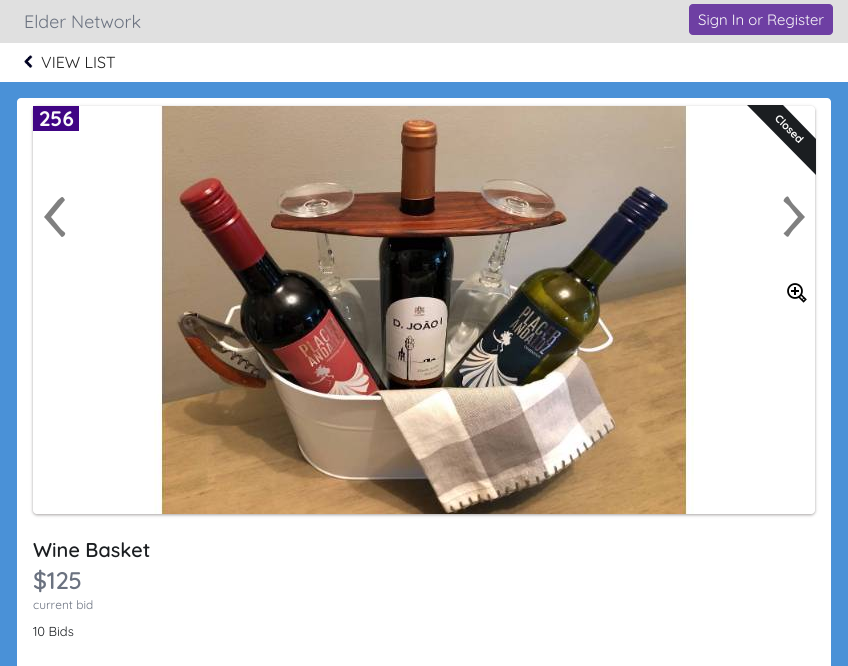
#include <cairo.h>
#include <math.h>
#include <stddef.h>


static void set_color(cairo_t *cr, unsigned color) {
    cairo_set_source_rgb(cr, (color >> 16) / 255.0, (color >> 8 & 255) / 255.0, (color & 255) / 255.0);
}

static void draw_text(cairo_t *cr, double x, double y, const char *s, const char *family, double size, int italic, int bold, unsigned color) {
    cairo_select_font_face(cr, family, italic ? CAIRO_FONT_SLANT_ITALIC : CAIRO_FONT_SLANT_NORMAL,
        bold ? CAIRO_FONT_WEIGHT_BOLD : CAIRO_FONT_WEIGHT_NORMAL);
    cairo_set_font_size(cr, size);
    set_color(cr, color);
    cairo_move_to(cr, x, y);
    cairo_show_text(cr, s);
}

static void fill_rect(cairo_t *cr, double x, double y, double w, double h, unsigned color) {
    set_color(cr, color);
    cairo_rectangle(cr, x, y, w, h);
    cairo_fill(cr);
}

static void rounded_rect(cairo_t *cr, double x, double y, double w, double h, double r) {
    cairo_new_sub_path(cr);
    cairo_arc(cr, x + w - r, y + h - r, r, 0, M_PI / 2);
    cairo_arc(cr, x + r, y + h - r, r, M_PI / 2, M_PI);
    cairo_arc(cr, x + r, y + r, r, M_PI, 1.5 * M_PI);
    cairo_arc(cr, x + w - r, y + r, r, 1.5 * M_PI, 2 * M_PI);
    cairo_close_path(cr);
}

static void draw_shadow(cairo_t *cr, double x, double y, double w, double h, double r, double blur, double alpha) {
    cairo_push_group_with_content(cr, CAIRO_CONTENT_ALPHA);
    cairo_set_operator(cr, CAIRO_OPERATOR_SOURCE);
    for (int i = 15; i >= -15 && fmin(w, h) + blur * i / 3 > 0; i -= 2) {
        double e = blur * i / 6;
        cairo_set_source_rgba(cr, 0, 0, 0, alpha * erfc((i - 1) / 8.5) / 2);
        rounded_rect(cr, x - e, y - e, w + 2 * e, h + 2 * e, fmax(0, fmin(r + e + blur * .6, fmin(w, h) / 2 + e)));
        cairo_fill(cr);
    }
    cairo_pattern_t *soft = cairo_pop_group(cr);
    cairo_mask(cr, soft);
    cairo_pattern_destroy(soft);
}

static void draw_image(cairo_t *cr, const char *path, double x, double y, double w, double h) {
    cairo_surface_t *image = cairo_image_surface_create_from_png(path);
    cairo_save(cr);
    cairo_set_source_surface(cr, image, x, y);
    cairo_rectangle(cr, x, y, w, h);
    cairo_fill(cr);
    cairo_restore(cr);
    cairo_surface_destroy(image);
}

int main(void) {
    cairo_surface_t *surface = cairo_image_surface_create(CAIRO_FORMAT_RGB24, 848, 666);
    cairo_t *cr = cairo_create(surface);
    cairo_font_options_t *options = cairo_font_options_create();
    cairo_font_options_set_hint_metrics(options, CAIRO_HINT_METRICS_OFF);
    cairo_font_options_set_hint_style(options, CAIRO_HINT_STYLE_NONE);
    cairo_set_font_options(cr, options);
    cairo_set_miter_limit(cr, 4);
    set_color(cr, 0x4A91D7);
    cairo_paint(cr);
    fill_rect(cr, 0, 0, 848, 43, 0xE0E0E0);
    draw_text(cr, 24, 28, "Elder Network", "Quicksand", 18, 0, 0, 0x6B7280);
    set_color(cr, 0x6E3FA3);
    rounded_rect(cr, 689.5, 4.5, 143, 30, 3.5);
    cairo_fill_preserve(cr);
    cairo_set_line_width(cr, 1);
    cairo_stroke(cr);
    draw_text(cr, 698, 25, "Sign In or Register", "Quicksand", 15, 0, 0, 0xFAFAFA);
    fill_rect(cr, 0, 43, 848, 39, 0xFFFFFF);
    draw_image(cr, "assets/img1.png", 24, 55, 9, 13);
    draw_text(cr, 41, 68, "VIEW LIST", "Quicksand", 16, 0, 0, 0x222222);
    set_color(cr, 0xFFFFFF);
    rounded_rect(cr, 17, 98, 814, 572, 4);
    cairo_fill(cr);
    cairo_save(cr);
    cairo_set_fill_rule(cr, CAIRO_FILL_RULE_EVEN_ODD);
    cairo_new_path(cr);
    cairo_move_to(cr, 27, 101);
    cairo_line_to(cr, 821, 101);
    cairo_line_to(cr, 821, 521);
    cairo_line_to(cr, 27, 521);
    cairo_close_path(cr);
    cairo_move_to(cr, 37, 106);
    cairo_line_to(cr, 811, 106);
    cairo_curve_to(cr, 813, 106, 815, 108, 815, 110);
    cairo_line_to(cr, 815, 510);
    cairo_curve_to(cr, 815, 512, 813, 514, 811, 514);
    cairo_line_to(cr, 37, 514);
    cairo_curve_to(cr, 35, 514, 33, 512, 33, 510);
    cairo_line_to(cr, 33, 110);
    cairo_curve_to(cr, 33, 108, 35, 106, 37, 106);
    cairo_close_path(cr);
    cairo_clip(cr);
    set_color(cr, 0x221919);
    draw_shadow(cr, 33, 107, 782, 408, 4, 1.5, 0.4);
    cairo_restore(cr);
    fill_rect(cr, 33, 106, 46, 25, 0x400484);
    draw_text(cr, 39, 126, "256", "Quicksand", 21, 0, 1, 0xFAFAFA);
    draw_image(cr, "assets/img2.png", 154, 106, 540, 408);
    set_color(cr, 0x1B1E21);
    cairo_new_path(cr);
    cairo_move_to(cr, 816, 175);
    cairo_line_to(cr, 747, 105);
    cairo_line_to(cr, 783, 105);
    cairo_line_to(cr, 816, 139);
    cairo_close_path(cr);
    cairo_fill(cr);
    cairo_save(cr);
    cairo_translate(cr, 774, 119);
    cairo_rotate(cr, 45 * M_PI / 180);
    draw_text(cr, 0, 0, "Closed", "Quicksand", 11, 0, 1, 0xFAFAFA);
    cairo_restore(cr);
    set_color(cr, 0x808080);
    cairo_new_path(cr);
    cairo_move_to(cr, 44, 217);
    cairo_line_to(cr, 59, 234);
    cairo_curve_to(cr, 62, 237, 61, 238, 64, 236);
    cairo_curve_to(cr, 67, 232, 64, 233, 60, 228);
    cairo_line_to(cr, 51, 217);
    cairo_line_to(cr, 65, 200);
    cairo_curve_to(cr, 62, 195, 62, 197, 58, 200);
    cairo_close_path(cr);
    cairo_fill(cr);
    cairo_new_path(cr);
    cairo_move_to(cr, 805, 217);
    cairo_line_to(cr, 793, 204);
    cairo_curve_to(cr, 788, 198, 789, 194, 785, 198);
    cairo_curve_to(cr, 782, 202, 784, 201, 789, 206);
    cairo_line_to(cr, 798, 217);
    cairo_line_to(cr, 786, 231);
    cairo_curve_to(cr, 783, 234, 783, 233, 785, 235);
    cairo_curve_to(cr, 789, 239, 788, 236, 793, 230);
    cairo_close_path(cr);
    cairo_fill(cr);
    draw_image(cr, "assets/img3.png", 787, 283, 20, 20);
    draw_text(cr, 33, 557, "Wine Basket", "Quicksand Medium", 20, 0, 0, 0x1B1E21);
    draw_text(cr, 33, 589, "$125", "Quicksand Medium", 24, 0, 0, 0x6B7280);
    draw_text(cr, 33, 609, "current bid", "Quicksand", 12, 0, 0, 0x6B7280);
    draw_text(cr, 33, 636, "10 Bids", "Quicksand", 13, 0, 0, 0x1B1E21);
    cairo_surface_write_to_png(surface, "output.png");
    cairo_font_options_destroy(options);
    cairo_destroy(cr);
    cairo_surface_destroy(surface);
    return 0;
}
